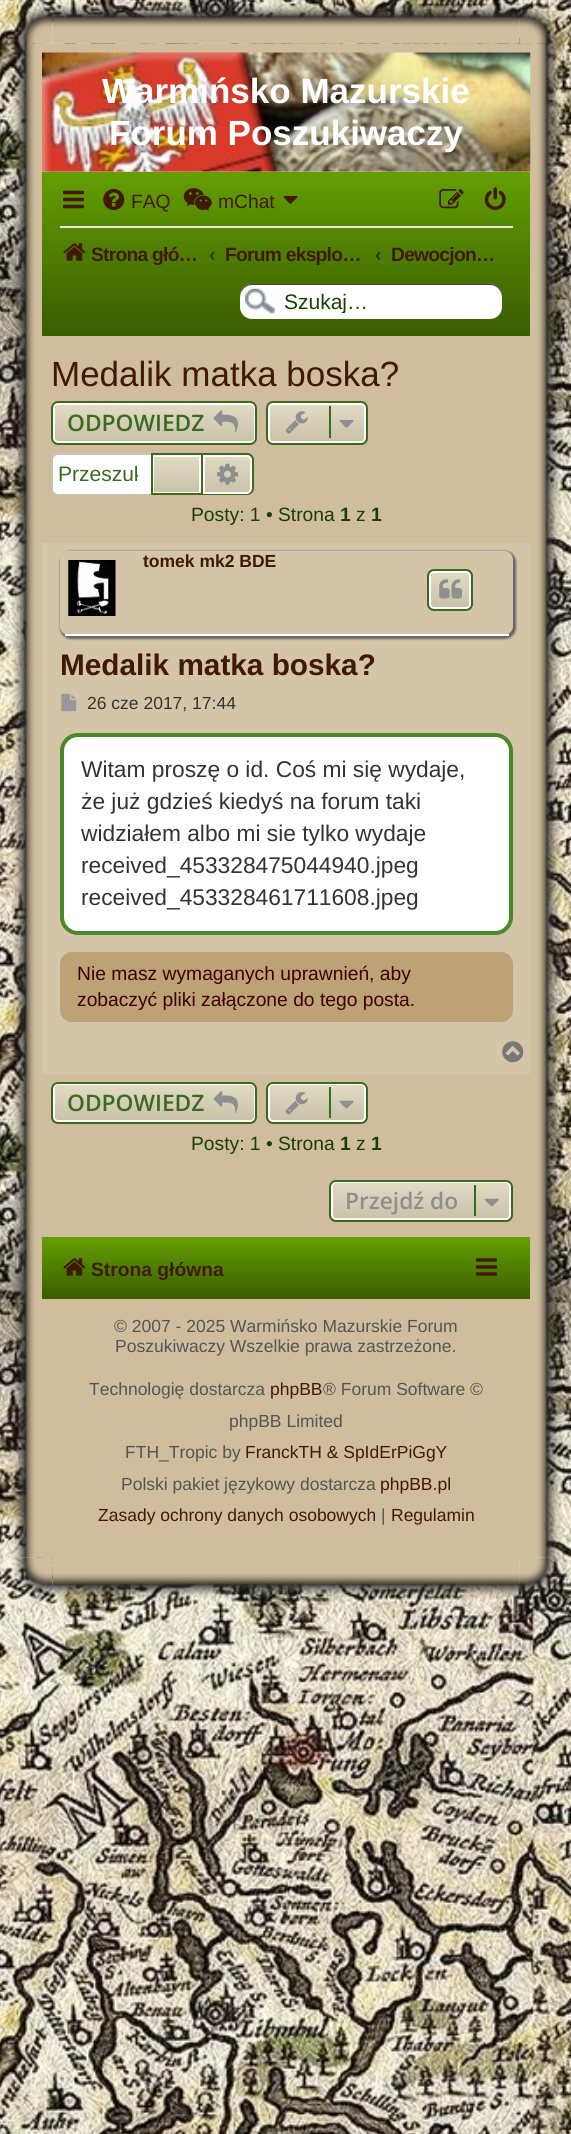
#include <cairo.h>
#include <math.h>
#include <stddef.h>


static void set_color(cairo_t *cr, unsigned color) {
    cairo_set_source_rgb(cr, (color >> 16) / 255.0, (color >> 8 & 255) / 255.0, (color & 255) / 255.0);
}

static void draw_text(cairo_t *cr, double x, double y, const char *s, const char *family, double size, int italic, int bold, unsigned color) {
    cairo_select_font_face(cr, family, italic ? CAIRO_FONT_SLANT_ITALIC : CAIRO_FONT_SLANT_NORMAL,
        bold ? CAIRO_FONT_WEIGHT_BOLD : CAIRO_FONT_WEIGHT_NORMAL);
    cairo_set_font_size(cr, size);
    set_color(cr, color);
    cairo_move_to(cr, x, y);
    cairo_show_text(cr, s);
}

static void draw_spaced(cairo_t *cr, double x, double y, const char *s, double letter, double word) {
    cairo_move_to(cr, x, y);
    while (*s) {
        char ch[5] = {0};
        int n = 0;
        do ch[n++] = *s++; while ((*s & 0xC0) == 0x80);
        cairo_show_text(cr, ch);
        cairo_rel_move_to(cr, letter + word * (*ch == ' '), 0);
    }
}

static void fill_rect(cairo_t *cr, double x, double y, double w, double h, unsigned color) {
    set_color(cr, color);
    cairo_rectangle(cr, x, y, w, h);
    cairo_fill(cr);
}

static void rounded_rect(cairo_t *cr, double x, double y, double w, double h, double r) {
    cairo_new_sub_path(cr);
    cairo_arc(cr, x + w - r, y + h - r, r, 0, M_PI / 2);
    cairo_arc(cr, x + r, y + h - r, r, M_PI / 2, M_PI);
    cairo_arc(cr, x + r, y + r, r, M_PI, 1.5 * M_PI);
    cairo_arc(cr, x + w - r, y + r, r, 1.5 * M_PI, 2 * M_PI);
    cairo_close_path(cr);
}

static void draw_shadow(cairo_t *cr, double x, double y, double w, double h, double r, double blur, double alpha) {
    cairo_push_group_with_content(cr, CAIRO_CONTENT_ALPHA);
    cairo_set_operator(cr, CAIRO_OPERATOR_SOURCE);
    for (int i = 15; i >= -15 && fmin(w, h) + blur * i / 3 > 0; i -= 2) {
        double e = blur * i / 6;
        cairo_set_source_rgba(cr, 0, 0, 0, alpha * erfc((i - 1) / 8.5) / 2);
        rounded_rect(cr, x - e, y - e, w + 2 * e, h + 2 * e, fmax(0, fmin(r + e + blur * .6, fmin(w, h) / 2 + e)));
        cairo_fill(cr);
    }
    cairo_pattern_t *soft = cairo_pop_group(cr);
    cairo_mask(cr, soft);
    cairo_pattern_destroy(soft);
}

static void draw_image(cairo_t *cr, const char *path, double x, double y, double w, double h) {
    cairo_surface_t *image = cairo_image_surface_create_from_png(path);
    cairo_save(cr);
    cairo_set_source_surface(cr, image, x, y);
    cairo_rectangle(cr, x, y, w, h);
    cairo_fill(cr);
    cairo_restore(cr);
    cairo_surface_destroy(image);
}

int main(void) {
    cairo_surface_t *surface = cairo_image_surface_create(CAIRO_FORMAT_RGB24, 571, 2134);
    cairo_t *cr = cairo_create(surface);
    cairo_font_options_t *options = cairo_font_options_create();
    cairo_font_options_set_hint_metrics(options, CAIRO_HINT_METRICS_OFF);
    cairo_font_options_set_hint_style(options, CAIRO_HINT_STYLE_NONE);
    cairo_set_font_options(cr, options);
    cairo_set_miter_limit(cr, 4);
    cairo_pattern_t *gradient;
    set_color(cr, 0xFFFFFF);
    cairo_paint(cr);
    draw_image(cr, "assets/img1.png", 0, 1601, 571, 533);
    draw_image(cr, "assets/img2.png", 0, 0, 571, 1601);
    draw_image(cr, "assets/img4.png", 52, 3, 468, 41);
    draw_image(cr, "assets/img6.png", 12, 43, 41, 1515);
    draw_image(cr, "assets/img3.png", 12, 3, 41, 41);
    draw_image(cr, "assets/img7.png", 519, 43, 42, 1515);
    draw_image(cr, "assets/img5.png", 519, 3, 41, 41);
    fill_rect(cr, 42, 44, 488, 1514, 0xCFBD9E);
    draw_image(cr, "assets/img8.png", 42, 52, 489, 120);
    draw_text(cr, 102, 103, "Warmińsko Mazurskie", "Liberation Sans", 35, 0, 1, 0xFFFFFF);
    draw_text(cr, 109, 145, "Forum Poszukiwaczy", "Liberation Sans", 35, 0, 1, 0xFFFFFF);
    gradient = cairo_pattern_create_linear(286, 170, 286, 336);
    cairo_pattern_add_color_stop_rgba(gradient, 0, 0.392, 0.624, 0.012, 1);
    cairo_pattern_add_color_stop_rgba(gradient, 1, 0.224, 0.361, 0.008, 1);
    cairo_set_source(cr, gradient);
    cairo_pattern_destroy(gradient);
    cairo_rectangle(cr, 42, 172, 488, 164);
    cairo_fill(cr);
    draw_image(cr, "assets/img9.png", 63, 190, 21, 19);
    draw_image(cr, "assets/img10.png", 103, 189, 22, 21);
    draw_text(cr, 131, 208, "FAQ", "Liberation Sans", 19.25, 0, 0, 0x401A07);
    draw_image(cr, "assets/img11.png", 183, 188, 29, 23);
    draw_text(cr, 218, 208, "mChat", "Liberation Sans", 19.25, 0, 0, 0x401A07);
    draw_image(cr, "assets/img12.png", 283, 196, 15, 8);
    draw_image(cr, "assets/img13.png", 439, 189, 25, 20);
    draw_image(cr, "assets/img14.png", 484, 187, 22, 23);
    fill_rect(cr, 60, 226, 453, 2, 0xEDE5D9);
    draw_image(cr, "assets/img15.png", 63, 243, 23, 18);
    cairo_select_font_face(cr, "Liberation Sans", CAIRO_FONT_SLANT_NORMAL, CAIRO_FONT_WEIGHT_BOLD);
    set_color(cr, 0x401A07);
    draw_spaced(cr, 91, 261, "Strona głó…", -0.75, 0);
    draw_text(cr, 209, 261, "‹", "Liberation Sans", 19.25, 0, 1, 0x184002);
    set_color(cr, 0x401A07);
    draw_spaced(cr, 225, 261, "Forum eksplo…", -0.75, 0);
    draw_text(cr, 375, 261, "‹", "Liberation Sans", 19.25, 0, 1, 0x184002);
    set_color(cr, 0x401A07);
    draw_spaced(cr, 391, 261, "Dewocjon…", -0.75, 0);
    set_color(cr, 0xFFFFFF);
    rounded_rect(cr, 240, 284, 262, 35, 12);
    cairo_fill(cr);
    draw_image(cr, "assets/img16.png", 245, 288, 30, 26);
    set_color(cr, 0x404040);
    cairo_new_path(cr);
    cairo_move_to(cr, 252, 285);
    cairo_line_to(cr, 490, 285);
    cairo_curve_to(cr, 497, 285, 502, 291, 502, 298);
    cairo_line_to(cr, 502, 296);
    cairo_curve_to(cr, 502, 289, 497, 284, 490, 284);
    cairo_line_to(cr, 252, 284);
    cairo_curve_to(cr, 245, 284, 240, 289, 240, 296);
    cairo_line_to(cr, 240, 298);
    cairo_curve_to(cr, 240, 291, 245, 285, 252, 285);
    cairo_close_path(cr);
    cairo_fill(cr);
    cairo_save(cr);
    cairo_rectangle(cr, 284, 289, 210, 24);
    cairo_clip(cr);
    draw_text(cr, 284, 309, "Szukaj…", "Liberation Sans", 21, 0, 0, 0x184002);
    cairo_restore(cr);
    draw_text(cr, 51, 386, "Medalik matka boska?", "Liberation Sans", 35, 0, 0, 0x401A07);
    cairo_save(cr);
    rounded_rect(cr, 51, 401, 206, 44, 7);
    cairo_clip(cr);
    gradient = cairo_pattern_create_linear(154, 403, 154, 443);
    cairo_pattern_add_color_stop_rgba(gradient, 0, 0.886, 0.863, 0.773, 1);
    cairo_pattern_add_color_stop_rgba(gradient, 1, 0.784, 0.757, 0.659, 1);
    cairo_set_source(cr, gradient);
    cairo_pattern_destroy(gradient);
    cairo_rectangle(cr, 51, 403, 206, 40);
    cairo_fill(cr);
    cairo_restore(cr);
    rounded_rect(cr, 54, 404, 201, 38, 4);
    set_color(cr, 0xFFFFFF);
    cairo_stroke(cr);
    rounded_rect(cr, 52, 402, 204, 42, 6);
    set_color(cr, 0x3B6920);
    cairo_stroke(cr);
    draw_text(cr, 67, 431, "ODPOWIEDZ", "Open Sans SemiBold", 22.75, 0, 0, 0x3B6920);
    draw_image(cr, "assets/img17.png", 213, 410, 25, 23);
    cairo_save(cr);
    rounded_rect(cr, 266, 401, 102, 44, 7);
    cairo_clip(cr);
    gradient = cairo_pattern_create_linear(317, 403, 317, 443);
    cairo_pattern_add_color_stop_rgba(gradient, 0, 0.886, 0.863, 0.773, 1);
    cairo_pattern_add_color_stop_rgba(gradient, 1, 0.784, 0.757, 0.659, 1);
    cairo_set_source(cr, gradient);
    cairo_pattern_destroy(gradient);
    cairo_rectangle(cr, 266, 403, 102, 40);
    cairo_fill(cr);
    cairo_restore(cr);
    rounded_rect(cr, 269, 404, 96, 38, 4);
    set_color(cr, 0xFFFFFF);
    cairo_stroke(cr);
    rounded_rect(cr, 267, 402, 100, 42, 6);
    set_color(cr, 0x3B6920);
    cairo_stroke(cr);
    draw_image(cr, "assets/img18.png", 285, 411, 23, 23);
    fill_rect(cr, 329, 406, 2, 32, 0x3B6920);
    draw_image(cr, "assets/img19.png", 339, 420, 15, 8);
    set_color(cr, 0xFFFFFF);
    cairo_new_path(cr);
    cairo_move_to(cr, 58, 455);
    cairo_line_to(cr, 151, 455);
    cairo_line_to(cr, 151, 494);
    cairo_line_to(cr, 58, 494);
    cairo_curve_to(cr, 55, 494, 53, 492, 53, 489);
    cairo_line_to(cr, 53, 460);
    cairo_curve_to(cr, 53, 457, 55, 455, 58, 455);
    cairo_close_path(cr);
    cairo_fill(cr);
    set_color(cr, 0xC7C3BF);
    cairo_set_fill_rule(cr, CAIRO_FILL_RULE_EVEN_ODD);
    cairo_new_path(cr);
    cairo_move_to(cr, 58, 453);
    cairo_line_to(cr, 150, 453);
    cairo_line_to(cr, 150, 495);
    cairo_line_to(cr, 58, 495);
    cairo_curve_to(cr, 54, 495, 51, 492, 51, 488);
    cairo_line_to(cr, 51, 460);
    cairo_curve_to(cr, 51, 456, 54, 453, 58, 453);
    cairo_close_path(cr);
    cairo_move_to(cr, 58, 455);
    cairo_line_to(cr, 150, 455);
    cairo_line_to(cr, 150, 494);
    cairo_line_to(cr, 58, 494);
    cairo_curve_to(cr, 55, 494, 52, 491, 52, 488);
    cairo_line_to(cr, 52, 460);
    cairo_curve_to(cr, 52, 457, 55, 455, 58, 455);
    cairo_close_path(cr);
    cairo_fill(cr);
    cairo_save(cr);
    cairo_set_fill_rule(cr, CAIRO_FILL_RULE_WINDING);
    cairo_rectangle(cr, 58, 462, 80, 25);
    cairo_clip(cr);
    draw_text(cr, 58, 481, "Przeszuk", "Liberation Sans", 21, 0, 0, 0x3B6920);
    cairo_restore(cr);
    gradient = cairo_pattern_create_linear(177, 455, 177, 494);
    cairo_pattern_add_color_stop_rgba(gradient, 0, 0.886, 0.863, 0.773, 1);
    cairo_pattern_add_color_stop_rgba(gradient, 1, 0.784, 0.757, 0.659, 1);
    cairo_set_source(cr, gradient);
    cairo_pattern_destroy(gradient);
    cairo_rectangle(cr, 154, 457, 45, 35);
    cairo_fill(cr);
    cairo_rectangle(cr, 153, 456, 47, 37);
    set_color(cr, 0xFFFFFF);
    cairo_stroke(cr);
    cairo_rectangle(cr, 152, 454, 50, 40);
    set_color(cr, 0x3B6920);
    cairo_stroke(cr);
    gradient = cairo_pattern_create_linear(228, 455, 228, 494);
    cairo_pattern_add_color_stop_rgba(gradient, 0, 0.886, 0.863, 0.773, 1);
    cairo_pattern_add_color_stop_rgba(gradient, 1, 0.784, 0.757, 0.659, 1);
    cairo_set_source(cr, gradient);
    cairo_pattern_destroy(gradient);
    cairo_new_path(cr);
    cairo_move_to(cr, 204, 456);
    cairo_line_to(cr, 247, 456);
    cairo_curve_to(cr, 249, 456, 251, 458, 251, 460);
    cairo_line_to(cr, 251, 489);
    cairo_curve_to(cr, 251, 491, 249, 493, 247, 493);
    cairo_line_to(cr, 204, 493);
    cairo_close_path(cr);
    cairo_fill_preserve(cr);
    set_color(cr, 0xFFFFFF);
    cairo_stroke(cr);
    set_color(cr, 0x3B6920);
    cairo_new_path(cr);
    cairo_move_to(cr, 203, 453);
    cairo_line_to(cr, 247, 453);
    cairo_curve_to(cr, 251, 453, 254, 456, 254, 460);
    cairo_line_to(cr, 254, 488);
    cairo_curve_to(cr, 254, 492, 251, 495, 247, 495);
    cairo_line_to(cr, 203, 495);
    cairo_close_path(cr);
    cairo_move_to(cr, 203, 455);
    cairo_line_to(cr, 247, 455);
    cairo_curve_to(cr, 250, 455, 252, 457, 252, 460);
    cairo_line_to(cr, 252, 488);
    cairo_curve_to(cr, 252, 491, 250, 494, 247, 494);
    cairo_line_to(cr, 203, 494);
    cairo_close_path(cr);
    cairo_fill(cr);
    draw_image(cr, "assets/img20.png", 217, 463, 21, 22);
    draw_text(cr, 191, 521, "Posty: 1 • Strona", "Liberation Sans", 19.25, 0, 0, 0x184002);
    draw_text(cr, 340, 521, "1", "Liberation Sans", 19.25, 0, 1, 0x184002);
    draw_text(cr, 356, 521, "z", "Liberation Sans", 19.25, 0, 0, 0x184002);
    draw_text(cr, 371, 521, "1", "Liberation Sans", 19.25, 0, 1, 0x184002);
    fill_rect(cr, 42, 543, 488, 532, 0xD4C4A8);
    cairo_save(cr);
    cairo_new_path(cr);
    cairo_move_to(cr, 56, 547);
    cairo_line_to(cr, 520, 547);
    cairo_line_to(cr, 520, 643);
    cairo_line_to(cr, 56, 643);
    cairo_close_path(cr);
    cairo_move_to(cr, 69, 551);
    cairo_line_to(cr, 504, 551);
    cairo_curve_to(cr, 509, 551, 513, 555, 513, 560);
    cairo_line_to(cr, 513, 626);
    cairo_curve_to(cr, 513, 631, 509, 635, 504, 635);
    cairo_line_to(cr, 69, 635);
    cairo_curve_to(cr, 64, 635, 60, 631, 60, 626);
    cairo_line_to(cr, 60, 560);
    cairo_curve_to(cr, 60, 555, 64, 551, 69, 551);
    cairo_close_path(cr);
    cairo_clip(cr);
    set_color(cr, 0x666666);
    draw_shadow(cr, 60, 551, 456, 88, 11, 1, 1);
    cairo_restore(cr);
    fill_rect(cr, 65, 634, 444, 2, 0xFFFFFF);
    draw_image(cr, "assets/img21.png", 68, 560, 48, 56);
    draw_text(cr, 143, 567, "tomek mk2 BDE", "Liberation Sans", 17.5, 0, 1, 0x401A07);
    cairo_save(cr);
    cairo_set_fill_rule(cr, CAIRO_FILL_RULE_WINDING);
    rounded_rect(cr, 427, 569, 46, 42, 7);
    cairo_clip(cr);
    gradient = cairo_pattern_create_linear(450, 571, 450, 609);
    cairo_pattern_add_color_stop_rgba(gradient, 0, 0.886, 0.863, 0.773, 1);
    cairo_pattern_add_color_stop_rgba(gradient, 1, 0.784, 0.757, 0.659, 1);
    cairo_set_source(cr, gradient);
    cairo_pattern_destroy(gradient);
    cairo_rectangle(cr, 427, 571, 46, 38);
    cairo_fill(cr);
    cairo_restore(cr);
    rounded_rect(cr, 430, 572, 40, 36, 4);
    set_color(cr, 0xFFFFFF);
    cairo_stroke(cr);
    rounded_rect(cr, 428, 570, 44, 40, 6);
    set_color(cr, 0x3B6920);
    cairo_stroke(cr);
    draw_image(cr, "assets/img22.png", 439, 579, 23, 20);
    draw_text(cr, 60, 675, "Medalik matka boska?", "Liberation Sans", 29.75, 0, 1, 0x401A07);
    draw_image(cr, "assets/img23.png", 61, 693, 16, 19);
    draw_text(cr, 87, 709, "26 cze 2017, 17:44", "Liberation Sans", 17.5, 0, 0, 0x333333);
    set_color(cr, 0xFFFFFF);
    rounded_rect(cr, 62, 735, 449, 198, 16);
    cairo_fill_preserve(cr);
    set_color(cr, 0x498828);
    cairo_set_line_width(cr, 4);
    cairo_stroke(cr);
    draw_text(cr, 81, 777, "Witam proszę o id. Coś mi się wydaje,", "Liberation Sans", 22.75, 0, 0, 0x333333);
    draw_text(cr, 81, 809, "że już gdzieś kiedyś na forum taki", "Liberation Sans", 22.75, 0, 0, 0x333333);
    draw_text(cr, 81, 841, "widziałem albo mi sie tylko wydaje", "Liberation Sans", 22.75, 0, 0, 0x333333);
    draw_text(cr, 81, 873, "received_453328475044940.jpeg", "Liberation Sans", 22.75, 0, 0, 0x333333);
    draw_text(cr, 81, 905, "received_453328461711608.jpeg", "Liberation Sans", 22.75, 0, 0, 0x333333);
    set_color(cr, 0xBCA274);
    rounded_rect(cr, 60, 952, 453, 70, 12);
    cairo_fill(cr);
    draw_text(cr, 77, 980, "Nie masz wymaganych uprawnień, aby", "Liberation Sans", 19.25, 0, 0, 0x400000);
    draw_text(cr, 77, 1006, "zobaczyć pliki załączone do tego posta.", "Liberation Sans", 19.25, 0, 0, 0x400000);
    draw_image(cr, "assets/img24.png", 502, 1041, 22, 22);
    cairo_save(cr);
    cairo_set_fill_rule(cr, CAIRO_FILL_RULE_WINDING);
    rounded_rect(cr, 51, 1082, 206, 42, 7);
    cairo_clip(cr);
    gradient = cairo_pattern_create_linear(154, 1083, 154, 1122);
    cairo_pattern_add_color_stop_rgba(gradient, 0, 0.886, 0.863, 0.773, 1);
    cairo_pattern_add_color_stop_rgba(gradient, 1, 0.784, 0.757, 0.659, 1);
    cairo_set_source(cr, gradient);
    cairo_pattern_destroy(gradient);
    cairo_rectangle(cr, 51, 1083, 206, 39);
    cairo_fill(cr);
    cairo_restore(cr);
    rounded_rect(cr, 54, 1084, 201, 37, 4);
    set_color(cr, 0xFFFFFF);
    cairo_set_line_width(cr, 2);
    cairo_stroke(cr);
    rounded_rect(cr, 52, 1083, 204, 40, 6);
    set_color(cr, 0x3B6920);
    cairo_stroke(cr);
    draw_text(cr, 67, 1111, "ODPOWIEDZ", "Open Sans SemiBold", 22.75, 0, 0, 0x3B6920);
    draw_image(cr, "assets/img25.png", 213, 1091, 25, 22);
    cairo_save(cr);
    cairo_set_fill_rule(cr, CAIRO_FILL_RULE_WINDING);
    rounded_rect(cr, 266, 1082, 102, 42, 7);
    cairo_clip(cr);
    gradient = cairo_pattern_create_linear(317, 1083, 317, 1122);
    cairo_pattern_add_color_stop_rgba(gradient, 0, 0.886, 0.863, 0.773, 1);
    cairo_pattern_add_color_stop_rgba(gradient, 1, 0.784, 0.757, 0.659, 1);
    cairo_set_source(cr, gradient);
    cairo_pattern_destroy(gradient);
    cairo_rectangle(cr, 266, 1083, 102, 39);
    cairo_fill(cr);
    cairo_restore(cr);
    rounded_rect(cr, 269, 1084, 96, 37, 4);
    set_color(cr, 0xFFFFFF);
    cairo_stroke(cr);
    rounded_rect(cr, 267, 1083, 100, 40, 6);
    set_color(cr, 0x3B6920);
    cairo_stroke(cr);
    draw_image(cr, "assets/img26.png", 285, 1092, 23, 23);
    fill_rect(cr, 329, 1087, 2, 31, 0x3B6920);
    draw_image(cr, "assets/img27.png", 339, 1100, 15, 9);
    draw_text(cr, 191, 1150, "Posty: 1 • Strona", "Liberation Sans", 19.25, 0, 0, 0x184002);
    draw_text(cr, 340, 1150, "1", "Liberation Sans", 19.25, 0, 1, 0x184002);
    draw_text(cr, 356, 1150, "z", "Liberation Sans", 19.25, 0, 0, 0x184002);
    draw_text(cr, 371, 1150, "1", "Liberation Sans", 19.25, 0, 1, 0x184002);
    cairo_save(cr);
    cairo_set_fill_rule(cr, CAIRO_FILL_RULE_WINDING);
    rounded_rect(cr, 329, 1180, 184, 42, 7);
    cairo_clip(cr);
    gradient = cairo_pattern_create_linear(421, 1181, 421, 1220);
    cairo_pattern_add_color_stop_rgba(gradient, 0, 0.886, 0.863, 0.773, 1);
    cairo_pattern_add_color_stop_rgba(gradient, 1, 0.784, 0.757, 0.659, 1);
    cairo_set_source(cr, gradient);
    cairo_pattern_destroy(gradient);
    cairo_rectangle(cr, 329, 1181, 184, 39);
    cairo_fill(cr);
    cairo_restore(cr);
    rounded_rect(cr, 332, 1182, 178, 37, 4);
    set_color(cr, 0xFFFFFF);
    cairo_stroke(cr);
    rounded_rect(cr, 330, 1181, 182, 40, 6);
    set_color(cr, 0x3B6920);
    cairo_stroke(cr);
    draw_text(cr, 345, 1209, "Przejdź do", "Open Sans SemiBold", 22.75, 0, 0, 0x8F8F8F);
    fill_rect(cr, 474, 1185, 2, 31, 0x3B6920);
    draw_image(cr, "assets/img28.png", 484, 1198, 15, 9);
    gradient = cairo_pattern_create_linear(286, 1237, 286, 1299);
    cairo_pattern_add_color_stop_rgba(gradient, 0, 0.392, 0.624, 0.012, 1);
    cairo_pattern_add_color_stop_rgba(gradient, 1, 0.224, 0.361, 0.008, 1);
    cairo_set_source(cr, gradient);
    cairo_pattern_destroy(gradient);
    cairo_rectangle(cr, 42, 1237, 488, 62);
    cairo_fill(cr);
    draw_image(cr, "assets/img29.png", 63, 1258, 23, 18);
    draw_text(cr, 91, 1276, "Strona główna", "Liberation Sans", 19.25, 0, 1, 0x401A07);
    draw_image(cr, "assets/img30.png", 476, 1258, 21, 18);
    draw_text(cr, 114, 1332, "© 2007 - 2025 Warmińsko Mazurskie Forum", "Liberation Sans", 17.5, 0, 0, 0x555555);
    draw_text(cr, 115, 1352, "Poszukiwaczy Wszelkie prawa zastrzeżone.", "Liberation Sans", 17.5, 0, 0, 0x555555);
    draw_text(cr, 89, 1395, "Technologię dostarcza", "Liberation Sans", 17.5, 0, 0, 0x555555);
    draw_text(cr, 270, 1395, "phpBB", "Liberation Sans", 17.5, 0, 0, 0x401A07);
    draw_text(cr, 323, 1395, "® Forum Software ©", "Liberation Sans", 17.5, 0, 0, 0x555555);
    draw_text(cr, 229, 1427, "phpBB Limited", "Liberation Sans", 17.5, 0, 0, 0x555555);
    draw_text(cr, 125, 1458, "FTH_Tropic by", "Liberation Sans", 17.5, 0, 0, 0x555555);
    draw_text(cr, 245, 1458, "FranckTH & SpIdErPiGgY", "Liberation Sans", 17.5, 0, 0, 0x401A07);
    draw_text(cr, 121, 1490, "Polski pakiet językowy dostarcza", "Liberation Sans", 17.5, 0, 0, 0x555555);
    draw_text(cr, 380, 1490, "phpBB.pl", "Liberation Sans", 17.5, 0, 0, 0x401A07);
    draw_text(cr, 98, 1521, "Zasady ochrony danych osobowych", "Liberation Sans", 17.5, 0, 0, 0x401A07);
    draw_text(cr, 381, 1521, "|", "Liberation Sans", 17.5, 0, 0, 0x555555);
    draw_text(cr, 391, 1521, "Regulamin", "Liberation Sans", 17.5, 0, 0, 0x401A07);
    draw_image(cr, "assets/img32.png", 52, 1558, 468, 40);
    draw_image(cr, "assets/img31.png", 12, 1557, 41, 41);
    draw_image(cr, "assets/img33.png", 519, 1557, 42, 40);
    cairo_surface_write_to_png(surface, "output.png");
    cairo_font_options_destroy(options);
    cairo_destroy(cr);
    cairo_surface_destroy(surface);
    return 0;
}
